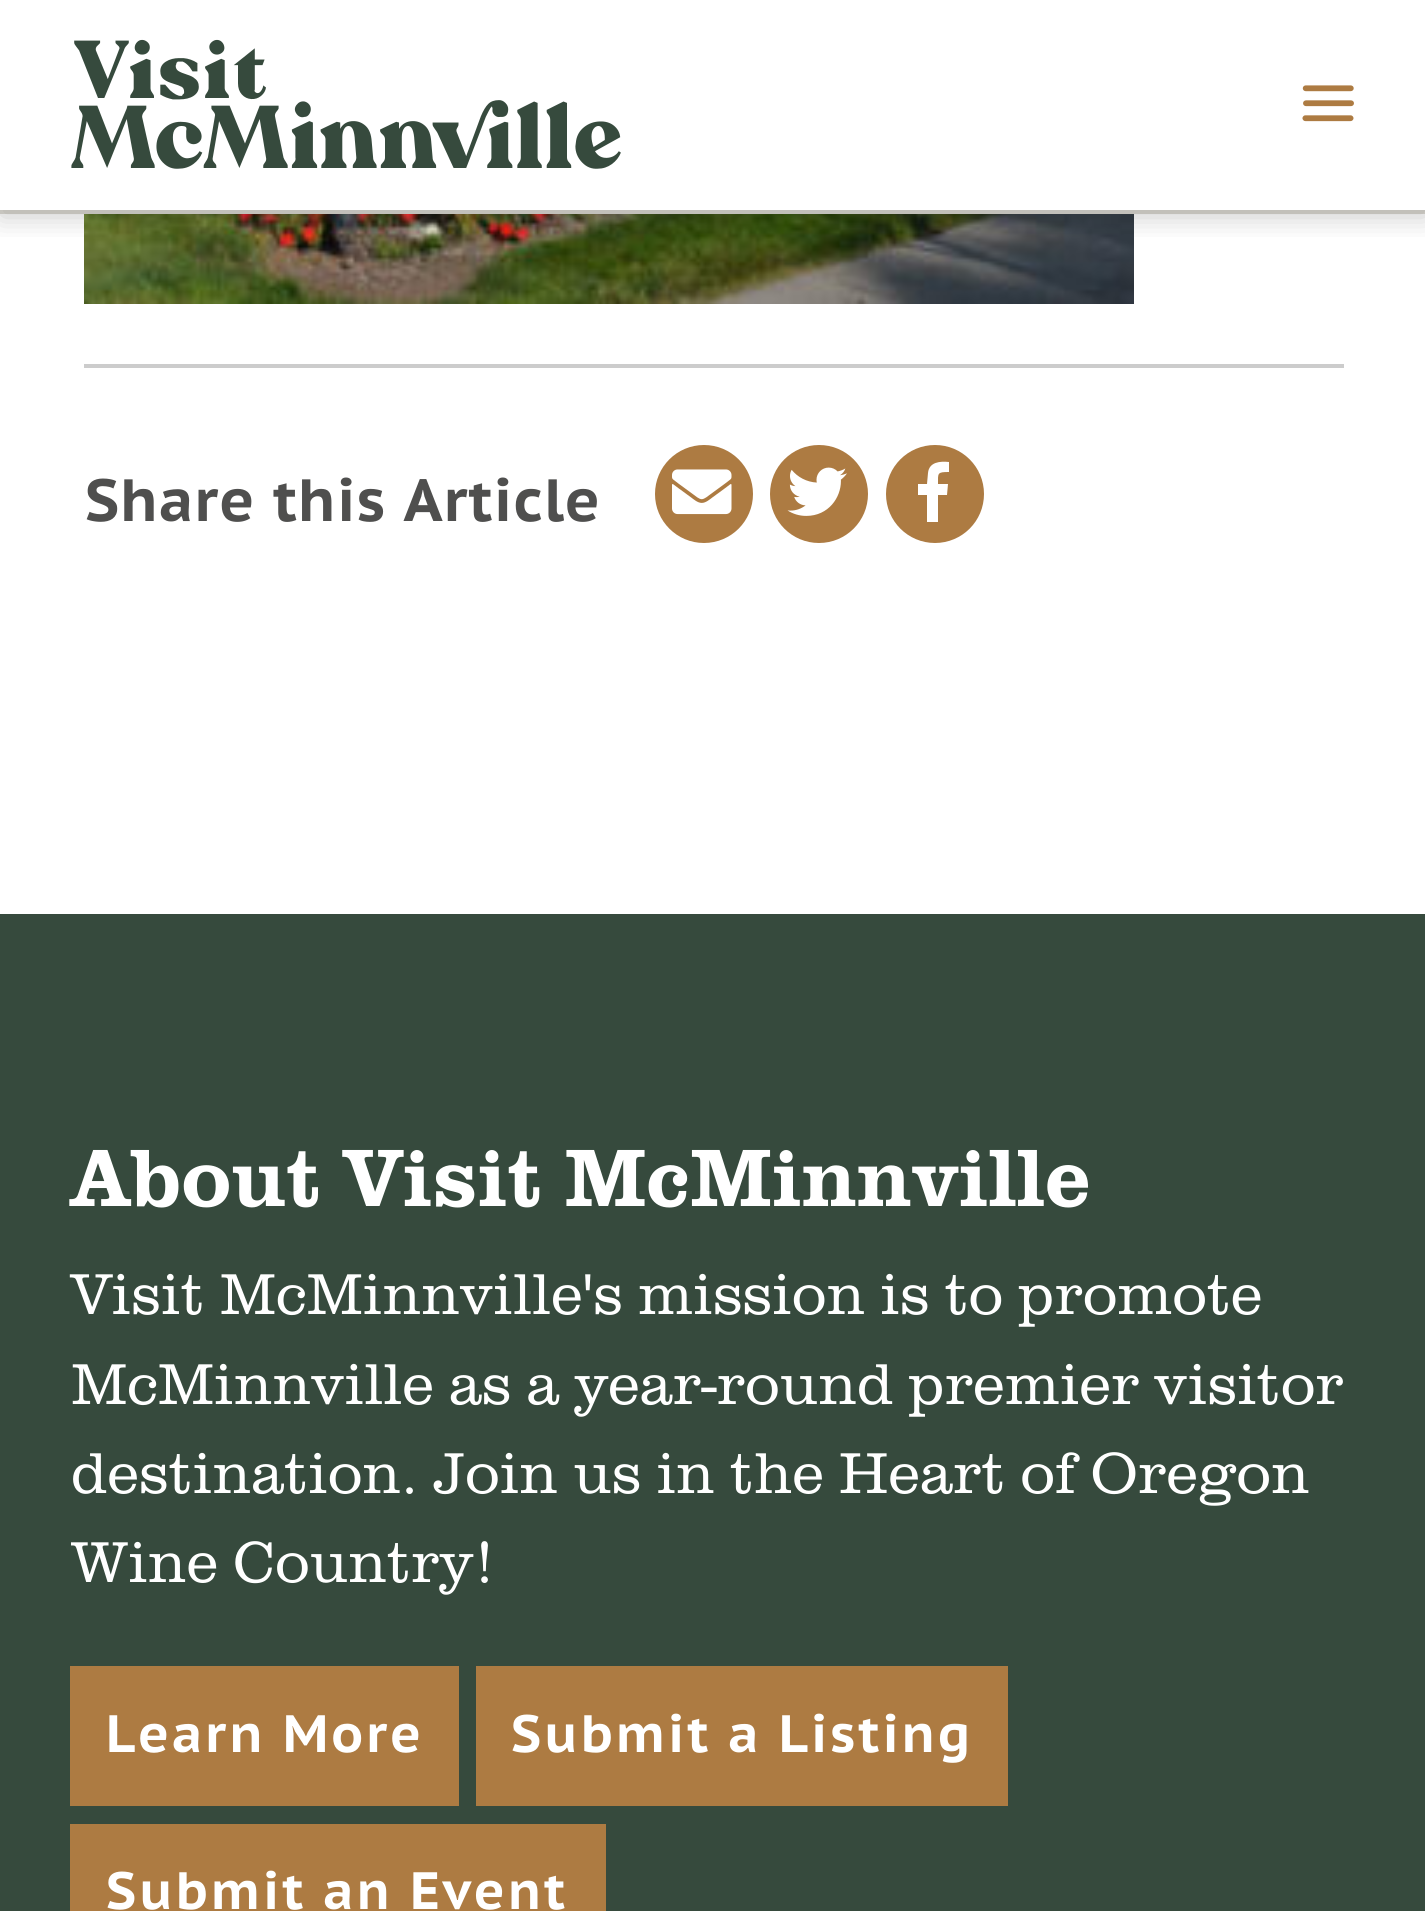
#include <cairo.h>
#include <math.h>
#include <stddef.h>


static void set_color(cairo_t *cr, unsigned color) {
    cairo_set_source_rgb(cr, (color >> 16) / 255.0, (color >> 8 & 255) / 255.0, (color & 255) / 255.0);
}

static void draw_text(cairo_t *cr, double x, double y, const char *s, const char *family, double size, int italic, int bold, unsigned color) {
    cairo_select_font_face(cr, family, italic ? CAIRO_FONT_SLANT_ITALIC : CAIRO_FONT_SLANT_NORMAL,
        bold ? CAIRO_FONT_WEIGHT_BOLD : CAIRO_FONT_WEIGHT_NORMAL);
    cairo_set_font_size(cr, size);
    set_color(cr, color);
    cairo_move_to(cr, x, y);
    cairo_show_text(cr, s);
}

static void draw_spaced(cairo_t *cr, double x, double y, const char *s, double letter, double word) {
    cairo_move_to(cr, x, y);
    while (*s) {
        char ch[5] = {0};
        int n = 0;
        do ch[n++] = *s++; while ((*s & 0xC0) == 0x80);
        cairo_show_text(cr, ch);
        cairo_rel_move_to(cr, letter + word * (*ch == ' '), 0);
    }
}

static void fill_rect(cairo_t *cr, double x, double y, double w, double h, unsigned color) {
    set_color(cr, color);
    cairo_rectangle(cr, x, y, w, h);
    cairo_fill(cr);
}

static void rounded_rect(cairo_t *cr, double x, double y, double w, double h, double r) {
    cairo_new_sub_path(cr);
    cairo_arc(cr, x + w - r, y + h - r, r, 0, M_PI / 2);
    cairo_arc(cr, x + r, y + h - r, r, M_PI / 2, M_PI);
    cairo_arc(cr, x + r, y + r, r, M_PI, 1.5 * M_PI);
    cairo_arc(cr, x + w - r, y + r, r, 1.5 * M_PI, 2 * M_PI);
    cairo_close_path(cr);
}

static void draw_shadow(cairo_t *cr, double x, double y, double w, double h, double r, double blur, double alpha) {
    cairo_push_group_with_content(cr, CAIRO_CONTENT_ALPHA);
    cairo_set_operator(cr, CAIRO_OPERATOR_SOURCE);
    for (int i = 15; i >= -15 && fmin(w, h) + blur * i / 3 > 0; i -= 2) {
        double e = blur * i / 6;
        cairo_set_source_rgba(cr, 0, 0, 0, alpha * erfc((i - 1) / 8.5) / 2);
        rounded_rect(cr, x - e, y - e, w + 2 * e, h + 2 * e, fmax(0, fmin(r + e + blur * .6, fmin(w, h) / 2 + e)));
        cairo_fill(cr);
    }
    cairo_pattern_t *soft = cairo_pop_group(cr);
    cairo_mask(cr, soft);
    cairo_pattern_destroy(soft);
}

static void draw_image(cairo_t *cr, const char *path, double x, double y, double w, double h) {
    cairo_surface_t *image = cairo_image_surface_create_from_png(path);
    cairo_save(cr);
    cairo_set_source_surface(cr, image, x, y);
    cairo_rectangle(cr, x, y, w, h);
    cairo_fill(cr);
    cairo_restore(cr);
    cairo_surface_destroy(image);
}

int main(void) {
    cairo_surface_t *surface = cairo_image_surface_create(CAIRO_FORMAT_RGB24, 1425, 1911);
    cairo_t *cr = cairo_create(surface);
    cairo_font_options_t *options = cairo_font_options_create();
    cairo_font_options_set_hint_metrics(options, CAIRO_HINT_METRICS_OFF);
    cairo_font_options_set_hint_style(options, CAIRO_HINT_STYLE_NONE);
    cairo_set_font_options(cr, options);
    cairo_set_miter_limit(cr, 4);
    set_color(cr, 0xFFFFFF);
    cairo_paint(cr);
    fill_rect(cr, 0, 210, 1425, 4, 0xDDDAD3);
    draw_image(cr, "assets/img3.png", 84, 214, 1050, 90);
    cairo_save(cr);
    cairo_rectangle(cr, 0, 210, 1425, 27);
    cairo_clip(cr);
    set_color(cr, 0x333333);
    draw_shadow(cr, 0, 7, 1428, 210, 0, 14, 0.25);
    cairo_restore(cr);
    draw_image(cr, "assets/img1.png", 71, 39, 550, 130);
    draw_image(cr, "assets/img2.png", 1302, 85, 52, 37);
    fill_rect(cr, 84, 364, 1260, 4, 0xCCCCCC);
    cairo_select_font_face(cr, "PT Sans Caption", CAIRO_FONT_SLANT_NORMAL, CAIRO_FONT_WEIGHT_BOLD);
    cairo_set_font_size(cr, 59.5);
    set_color(cr, 0x4F4F4E);
    draw_spaced(cr, 85, 521, "Share this Article", 0.9, 0);
    set_color(cr, 0xAD7B42);
    cairo_new_path(cr);
    cairo_arc(cr, 704, 494, 49, 0, 2 * M_PI);
    cairo_fill(cr);
    draw_image(cr, "assets/img4.png", 672, 469, 60, 46);
    cairo_arc(cr, 819, 494, 49, 0, 2 * M_PI);
    cairo_fill(cr);
    draw_image(cr, "assets/img5.png", 787, 467, 60, 49);
    cairo_arc(cr, 935, 494, 49, 0, 2 * M_PI);
    cairo_fill(cr);
    set_color(cr, 0xFFFFFF);
    cairo_new_path(cr);
    cairo_move_to(cr, 927, 522);
    cairo_line_to(cr, 927, 495);
    cairo_line_to(cr, 918, 495);
    cairo_line_to(cr, 918, 484);
    cairo_line_to(cr, 927, 484);
    cairo_line_to(cr, 928, 473);
    cairo_curve_to(cr, 929, 462, 940, 461, 949, 462);
    cairo_line_to(cr, 949, 472);
    cairo_curve_to(cr, 937, 472, 938, 473, 938, 484);
    cairo_line_to(cr, 948, 484);
    cairo_line_to(cr, 947, 495);
    cairo_line_to(cr, 938, 495);
    cairo_line_to(cr, 938, 522);
    cairo_fill(cr);
    fill_rect(cr, 0, 914, 1425, 997, 0x364A3D);
    draw_text(cr, 71, 1206, "About Visit McMinnville", "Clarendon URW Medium", 84, 0, 0, 0xFFFFFF);
    cairo_select_font_face(cr, "Clarendon URW Light", CAIRO_FONT_SLANT_NORMAL, CAIRO_FONT_WEIGHT_NORMAL);
    cairo_set_font_size(cr, 59.5);
    draw_spaced(cr, 71, 1314, "Visit McMinnville's mission is to promote", 0.15, 0);
    draw_spaced(cr, 71, 1404, "McMinnville as a year-round premier visitor", 0.15, 0);
    draw_spaced(cr, 71, 1493, "destination. Join us in the Heart of Oregon", 0.15, 0);
    draw_spaced(cr, 71, 1582, "Wine Country!", 0.15, 0);
    fill_rect(cr, 70, 1666, 389, 140, 0xAD7B42);
    cairo_select_font_face(cr, "PT Sans Caption", CAIRO_FONT_SLANT_NORMAL, CAIRO_FONT_WEIGHT_BOLD);
    cairo_set_font_size(cr, 52.5);
    set_color(cr, 0xFFFFFF);
    draw_spaced(cr, 106, 1752, "Learn More", 2.75, 0);
    fill_rect(cr, 476, 1666, 532, 140, 0xAD7B42);
    set_color(cr, 0xFFFFFF);
    draw_spaced(cr, 511, 1752, "Submit a Listing", 2.75, 0);
    fill_rect(cr, 70, 1824, 536, 87, 0xAD7B42);
    set_color(cr, 0xFFFFFF);
    draw_spaced(cr, 106, 1909, "Submit an Event", 2.75, 0);
    cairo_surface_write_to_png(surface, "output.png");
    cairo_font_options_destroy(options);
    cairo_destroy(cr);
    cairo_surface_destroy(surface);
    return 0;
}
